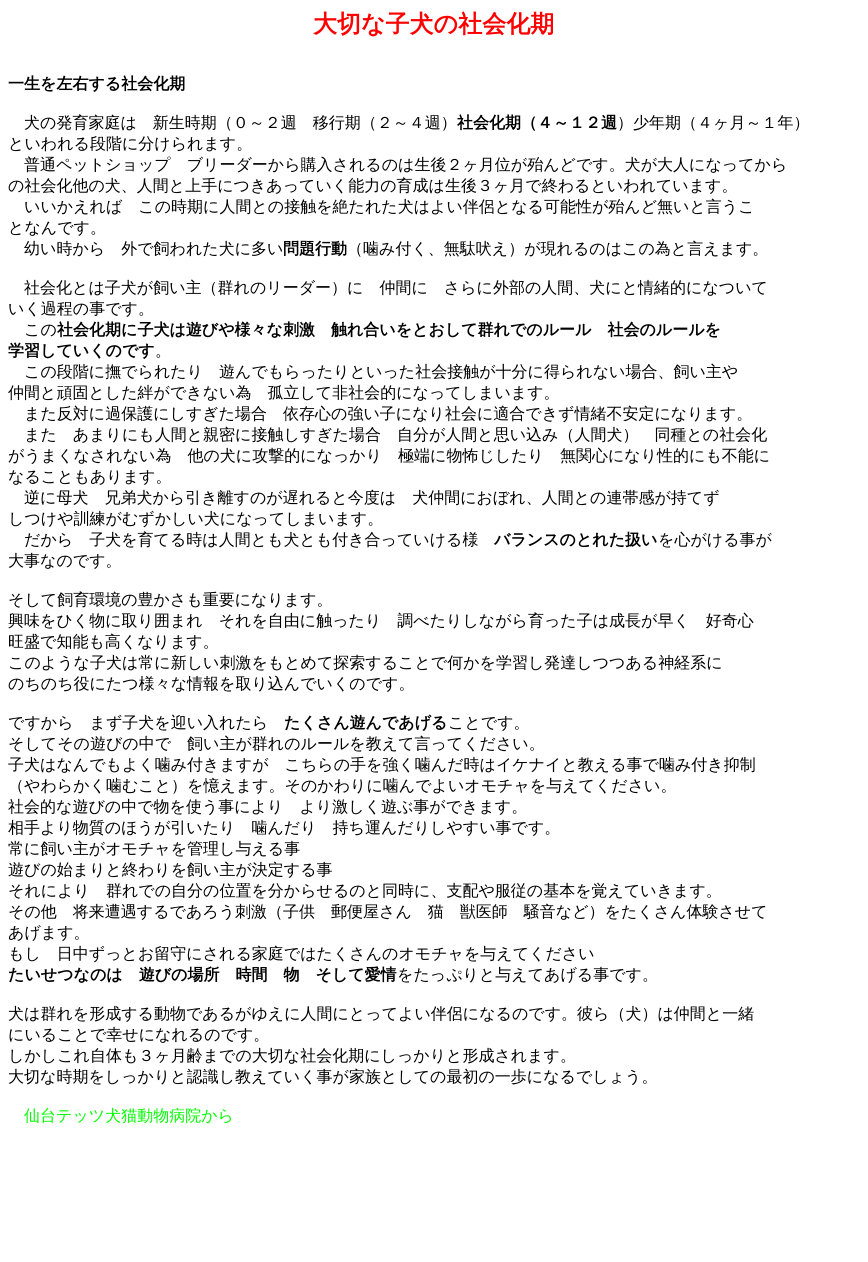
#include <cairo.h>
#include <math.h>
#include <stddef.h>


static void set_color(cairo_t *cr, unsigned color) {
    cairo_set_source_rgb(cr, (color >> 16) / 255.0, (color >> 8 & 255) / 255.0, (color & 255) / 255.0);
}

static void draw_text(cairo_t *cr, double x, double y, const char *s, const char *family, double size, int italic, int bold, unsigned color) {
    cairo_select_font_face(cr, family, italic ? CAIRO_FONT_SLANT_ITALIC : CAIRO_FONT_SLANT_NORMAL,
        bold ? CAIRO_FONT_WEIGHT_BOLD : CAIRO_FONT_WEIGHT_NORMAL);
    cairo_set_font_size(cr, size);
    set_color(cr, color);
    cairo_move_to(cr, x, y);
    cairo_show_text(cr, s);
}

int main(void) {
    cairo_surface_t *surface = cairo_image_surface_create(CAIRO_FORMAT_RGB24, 868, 1262);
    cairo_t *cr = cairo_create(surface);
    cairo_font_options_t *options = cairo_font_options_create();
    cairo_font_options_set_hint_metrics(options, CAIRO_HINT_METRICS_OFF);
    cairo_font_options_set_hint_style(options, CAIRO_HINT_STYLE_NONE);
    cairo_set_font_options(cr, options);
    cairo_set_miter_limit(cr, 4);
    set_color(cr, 0xFFFFFF);
    cairo_paint(cr);
    draw_text(cr, 313, 32, "大切な子犬の社会化期", "WenQuanYi Zen Hei", 24, 0, 1, 0xFF0000);
    draw_text(cr, 8, 89, "一生を左右する社会化期", "WenQuanYi Zen Hei", 16, 0, 1, 0x000000);
    draw_text(cr, 24, 128, "犬の発育家庭は　新生時期（０～２週　移行期（２～４週）", "WenQuanYi Zen Hei Medium", 16, 0, 0, 0x000000);
    draw_text(cr, 457, 128, "社会化期（４～１２週", "WenQuanYi Zen Hei", 16, 0, 1, 0x000000);
    draw_text(cr, 617, 128, "）少年期（４ヶ月～１年）", "WenQuanYi Zen Hei Medium", 16, 0, 0, 0x000000);
    draw_text(cr, 8, 149, "といわれる段階に分けられます。", "WenQuanYi Zen Hei Medium", 16, 0, 0, 0x000000);
    draw_text(cr, 24, 170, "普通ペットショップ　ブリーダーから購入されるのは生後２ヶ月位が殆んどです。犬が大人になってから", "WenQuanYi Zen Hei Medium", 16, 0, 0, 0x000000);
    draw_text(cr, 8, 191, "の社会化他の犬、人間と上手につきあっていく能力の育成は生後３ヶ月で終わるといわれています。", "WenQuanYi Zen Hei Medium", 16, 0, 0, 0x000000);
    draw_text(cr, 24, 212, "いいかえれば　この時期に人間との接触を絶たれた犬はよい伴侶となる可能性が殆んど無いと言うこ", "WenQuanYi Zen Hei Medium", 16, 0, 0, 0x000000);
    draw_text(cr, 8, 233, "となんです。", "WenQuanYi Zen Hei Medium", 16, 0, 0, 0x000000);
    draw_text(cr, 24, 254, "幼い時から　外で飼われた犬に多い", "WenQuanYi Zen Hei Medium", 16, 0, 0, 0x000000);
    draw_text(cr, 283, 254, "問題行動", "WenQuanYi Zen Hei", 16, 0, 1, 0x000000);
    draw_text(cr, 347, 254, "（噛み付く、無駄吠え）が現れるのはこの為と言えます。", "WenQuanYi Zen Hei Medium", 16, 0, 0, 0x000000);
    draw_text(cr, 24, 293, "社会化とは子犬が飼い主（群れのリーダー）に　仲間に　さらに外部の人間、犬にと情緒的になついて", "WenQuanYi Zen Hei Medium", 16, 0, 0, 0x000000);
    draw_text(cr, 8, 314, "いく過程の事です。", "WenQuanYi Zen Hei Medium", 16, 0, 0, 0x000000);
    draw_text(cr, 24, 335, "この", "WenQuanYi Zen Hei Medium", 16, 0, 0, 0x000000);
    draw_text(cr, 57, 335, "社会化期に子犬は遊びや様々な刺激　触れ合いをとおして群れでのルール　社会のルールを", "WenQuanYi Zen Hei", 16, 0, 1, 0x000000);
    draw_text(cr, 8, 356, "学習していくのです", "WenQuanYi Zen Hei", 16, 0, 1, 0x000000);
    draw_text(cr, 155, 356, "。", "WenQuanYi Zen Hei Medium", 16, 0, 0, 0x000000);
    draw_text(cr, 24, 377, "この段階に撫でられたり　遊んでもらったりといった社会接触が十分に得られない場合、飼い主や", "WenQuanYi Zen Hei Medium", 16, 0, 0, 0x000000);
    draw_text(cr, 8, 398, "仲間と頑固とした絆ができない為　孤立して非社会的になってしまいます。", "WenQuanYi Zen Hei Medium", 16, 0, 0, 0x000000);
    draw_text(cr, 24, 419, "また反対に過保護にしすぎた場合　依存心の強い子になり社会に適合できず情緒不安定になります。", "WenQuanYi Zen Hei Medium", 16, 0, 0, 0x000000);
    draw_text(cr, 24, 440, "また　あまりにも人間と親密に接触しすぎた場合　自分が人間と思い込み（人間犬）　同種との社会化", "WenQuanYi Zen Hei Medium", 16, 0, 0, 0x000000);
    draw_text(cr, 8, 461, "がうまくなされない為　他の犬に攻撃的になっかり　極端に物怖じしたり　無関心になり性的にも不能に", "WenQuanYi Zen Hei Medium", 16, 0, 0, 0x000000);
    draw_text(cr, 8, 482, "なることもあります。", "WenQuanYi Zen Hei Medium", 16, 0, 0, 0x000000);
    draw_text(cr, 24, 503, "逆に母犬　兄弟犬から引き離すのが遅れると今度は　犬仲間におぼれ、人間との連帯感が持てず", "WenQuanYi Zen Hei Medium", 16, 0, 0, 0x000000);
    draw_text(cr, 8, 524, "しつけや訓練がむずかしい犬になってしまいます。", "WenQuanYi Zen Hei Medium", 16, 0, 0, 0x000000);
    draw_text(cr, 24, 545, "だから　子犬を育てる時は人間とも犬とも付き合っていける様", "WenQuanYi Zen Hei Medium", 16, 0, 0, 0x000000);
    draw_text(cr, 494, 545, "バランスのとれた扱い", "WenQuanYi Zen Hei", 16, 0, 1, 0x000000);
    draw_text(cr, 658, 545, "を心がける事が", "WenQuanYi Zen Hei Medium", 16, 0, 0, 0x000000);
    draw_text(cr, 8, 566, "大事なのです。", "WenQuanYi Zen Hei Medium", 16, 0, 0, 0x000000);
    draw_text(cr, 8, 605, "そして飼育環境の豊かさも重要になります。", "WenQuanYi Zen Hei Medium", 16, 0, 0, 0x000000);
    draw_text(cr, 8, 626, "興味をひく物に取り囲まれ　それを自由に触ったり　調べたりしながら育った子は成長が早く　好奇心", "WenQuanYi Zen Hei Medium", 16, 0, 0, 0x000000);
    draw_text(cr, 8, 647, "旺盛で知能も高くなります。", "WenQuanYi Zen Hei Medium", 16, 0, 0, 0x000000);
    draw_text(cr, 8, 668, "このような子犬は常に新しい刺激をもとめて探索することで何かを学習し発達しつつある神経系に", "WenQuanYi Zen Hei Medium", 16, 0, 0, 0x000000);
    draw_text(cr, 8, 689, "のちのち役にたつ様々な情報を取り込んでいくのです。", "WenQuanYi Zen Hei Medium", 16, 0, 0, 0x000000);
    draw_text(cr, 8, 728, "ですから　まず子犬を迎い入れたら", "WenQuanYi Zen Hei Medium", 16, 0, 0, 0x000000);
    draw_text(cr, 284, 728, "たくさん遊んであげる", "WenQuanYi Zen Hei", 16, 0, 1, 0x000000);
    draw_text(cr, 448, 728, "ことです。", "WenQuanYi Zen Hei Medium", 16, 0, 0, 0x000000);
    draw_text(cr, 8, 749, "そしてその遊びの中で　飼い主が群れのルールを教えて言ってください。", "WenQuanYi Zen Hei Medium", 16, 0, 0, 0x000000);
    draw_text(cr, 8, 770, "子犬はなんでもよく噛み付きますが　こちらの手を強く噛んだ時はイケナイと教える事で噛み付き抑制", "WenQuanYi Zen Hei Medium", 16, 0, 0, 0x000000);
    draw_text(cr, 8, 791, "（やわらかく噛むこと）を憶えます。そのかわりに噛んでよいオモチャを与えてください。", "WenQuanYi Zen Hei Medium", 16, 0, 0, 0x000000);
    draw_text(cr, 8, 812, "社会的な遊びの中で物を使う事により　より激しく遊ぶ事ができます。", "WenQuanYi Zen Hei Medium", 16, 0, 0, 0x000000);
    draw_text(cr, 8, 833, "相手より物質のほうが引いたり　噛んだり　持ち運んだりしやすい事です。", "WenQuanYi Zen Hei Medium", 16, 0, 0, 0x000000);
    draw_text(cr, 8, 854, "常に飼い主がオモチャを管理し与える事", "WenQuanYi Zen Hei Medium", 16, 0, 0, 0x000000);
    draw_text(cr, 8, 875, "遊びの始まりと終わりを飼い主が決定する事", "WenQuanYi Zen Hei Medium", 16, 0, 0, 0x000000);
    draw_text(cr, 8, 896, "それにより　群れでの自分の位置を分からせるのと同時に、支配や服従の基本を覚えていきます。", "WenQuanYi Zen Hei Medium", 16, 0, 0, 0x000000);
    draw_text(cr, 8, 917, "その他　将来遭遇するであろう刺激（子供　郵便屋さん　猫　獣医師　騒音など）をたくさん体験させて", "WenQuanYi Zen Hei Medium", 16, 0, 0, 0x000000);
    draw_text(cr, 8, 938, "あげます。", "WenQuanYi Zen Hei Medium", 16, 0, 0, 0x000000);
    draw_text(cr, 8, 959, "もし　日中ずっとお留守にされる家庭ではたくさんのオモチャを与えてください", "WenQuanYi Zen Hei Medium", 16, 0, 0, 0x000000);
    draw_text(cr, 8, 980, "たいせつなのは　遊びの場所　時間　物　そして愛情", "WenQuanYi Zen Hei", 16, 0, 1, 0x000000);
    draw_text(cr, 397, 980, "をたっぷりと与えてあげる事です。", "WenQuanYi Zen Hei Medium", 16, 0, 0, 0x000000);
    draw_text(cr, 8, 1019, "犬は群れを形成する動物であるがゆえに人間にとってよい伴侶になるのです。彼ら（犬）は仲間と一緒", "WenQuanYi Zen Hei Medium", 16, 0, 0, 0x000000);
    draw_text(cr, 8, 1040, "にいることで幸せになれるのです。", "WenQuanYi Zen Hei Medium", 16, 0, 0, 0x000000);
    draw_text(cr, 8, 1061, "しかしこれ自体も３ヶ月齢までの大切な社会化期にしっかりと形成されます。", "WenQuanYi Zen Hei Medium", 16, 0, 0, 0x000000);
    draw_text(cr, 8, 1082, "大切な時期をしっかりと認識し教えていく事が家族としての最初の一歩になるでしょう。", "WenQuanYi Zen Hei Medium", 16, 0, 0, 0x000000);
    draw_text(cr, 24, 1121, "仙台テッツ犬猫動物病院から", "WenQuanYi Zen Hei Medium", 16, 0, 0, 0x00FF00);
    cairo_surface_write_to_png(surface, "output.png");
    cairo_font_options_destroy(options);
    cairo_destroy(cr);
    cairo_surface_destroy(surface);
    return 0;
}
